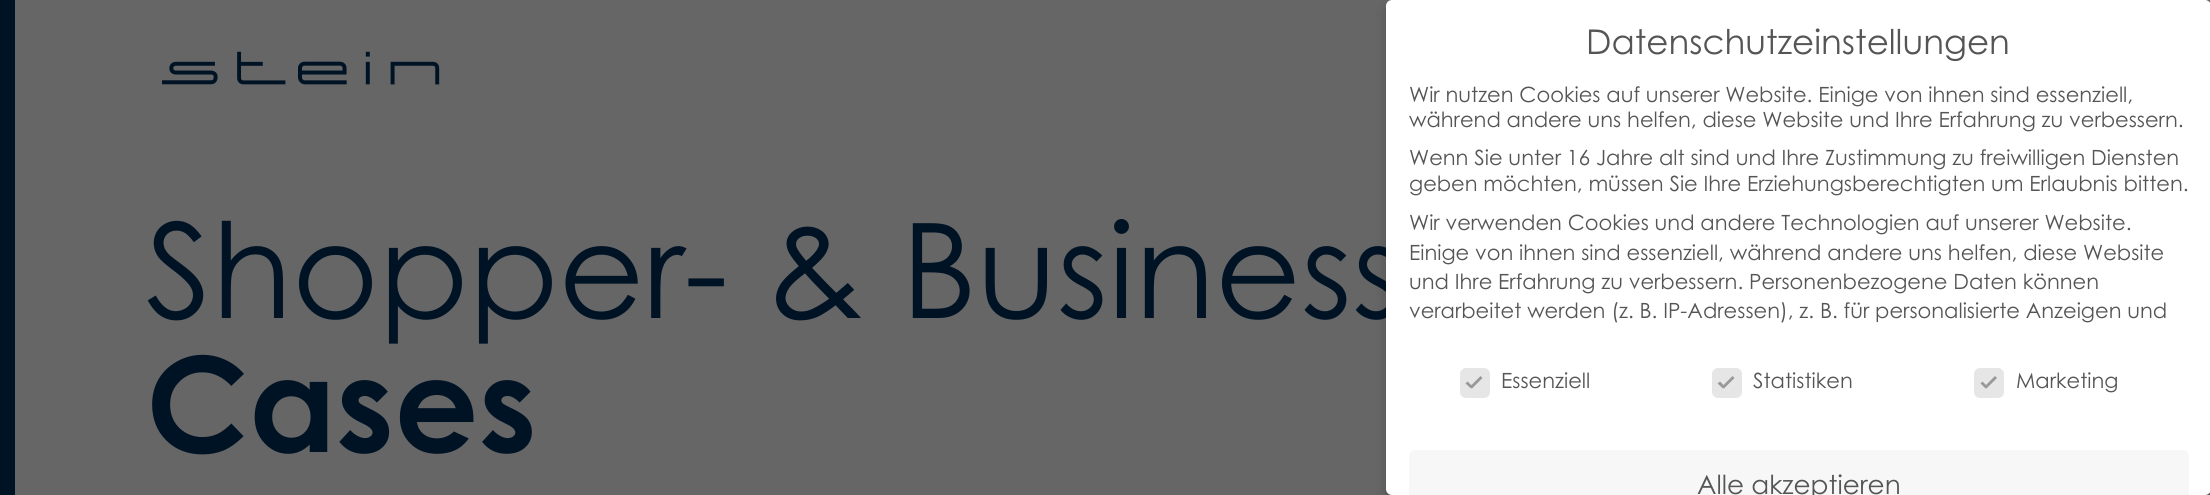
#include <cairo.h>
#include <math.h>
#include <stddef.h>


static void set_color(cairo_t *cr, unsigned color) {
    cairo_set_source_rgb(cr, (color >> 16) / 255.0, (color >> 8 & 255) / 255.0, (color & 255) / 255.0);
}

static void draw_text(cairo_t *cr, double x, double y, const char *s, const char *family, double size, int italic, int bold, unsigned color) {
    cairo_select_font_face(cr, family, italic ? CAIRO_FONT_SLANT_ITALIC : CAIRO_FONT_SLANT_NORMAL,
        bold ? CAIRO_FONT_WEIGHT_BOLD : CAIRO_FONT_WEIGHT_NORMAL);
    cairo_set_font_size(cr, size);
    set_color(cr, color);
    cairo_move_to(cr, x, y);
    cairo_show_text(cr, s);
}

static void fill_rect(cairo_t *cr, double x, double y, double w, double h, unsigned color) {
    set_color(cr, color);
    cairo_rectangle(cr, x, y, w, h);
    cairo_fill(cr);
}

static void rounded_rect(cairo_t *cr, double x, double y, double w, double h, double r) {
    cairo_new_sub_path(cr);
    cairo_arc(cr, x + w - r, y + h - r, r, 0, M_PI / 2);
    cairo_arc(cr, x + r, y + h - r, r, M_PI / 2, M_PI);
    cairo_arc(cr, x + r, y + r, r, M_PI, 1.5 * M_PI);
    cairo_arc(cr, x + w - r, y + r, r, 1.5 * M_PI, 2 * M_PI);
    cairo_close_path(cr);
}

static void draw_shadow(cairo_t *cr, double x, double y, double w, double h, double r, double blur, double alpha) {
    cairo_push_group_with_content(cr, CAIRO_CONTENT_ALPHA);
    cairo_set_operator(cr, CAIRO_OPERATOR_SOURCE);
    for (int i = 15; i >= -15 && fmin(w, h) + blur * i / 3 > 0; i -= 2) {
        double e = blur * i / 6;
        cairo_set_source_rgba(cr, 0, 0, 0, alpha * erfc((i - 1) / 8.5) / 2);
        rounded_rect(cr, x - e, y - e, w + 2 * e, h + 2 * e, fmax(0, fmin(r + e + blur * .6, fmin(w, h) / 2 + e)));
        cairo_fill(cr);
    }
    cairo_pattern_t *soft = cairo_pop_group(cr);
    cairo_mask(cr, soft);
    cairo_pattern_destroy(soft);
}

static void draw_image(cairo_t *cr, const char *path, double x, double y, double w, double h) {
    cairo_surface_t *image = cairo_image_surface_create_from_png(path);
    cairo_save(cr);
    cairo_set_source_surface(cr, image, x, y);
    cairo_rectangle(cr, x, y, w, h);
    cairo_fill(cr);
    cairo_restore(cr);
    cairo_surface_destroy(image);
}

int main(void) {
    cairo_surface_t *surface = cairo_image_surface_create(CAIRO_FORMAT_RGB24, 2210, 495);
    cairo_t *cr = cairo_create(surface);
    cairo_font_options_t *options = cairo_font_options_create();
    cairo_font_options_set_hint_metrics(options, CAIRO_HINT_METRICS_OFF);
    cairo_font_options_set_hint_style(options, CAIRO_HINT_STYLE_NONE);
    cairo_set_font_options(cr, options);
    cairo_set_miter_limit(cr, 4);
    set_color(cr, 0x666666);
    cairo_paint(cr);
    fill_rect(cr, 0, 0, 15, 495, 0x001325);
    draw_image(cr, "assets/img1.png", 162, 51, 278, 34);
    draw_text(cr, 146, 318, "Shopper- & Business", "Century Gothic", 132, 0, 0, 0x001325);
    draw_text(cr, 146, 452, "Cases", "Century Gothic", 132, 0, 1, 0x001325);
    set_color(cr, 0x000000);
    draw_shadow(cr, 1386, 6, 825, 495, 6, 6, 0.2);
    set_color(cr, 0xFFFFFF);
    rounded_rect(cr, 1386, 0, 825, 495, 6);
    cairo_fill(cr);
    draw_text(cr, 1586, 54, "Datenschutzeinstellungen", "Century Gothic", 34.1, 0, 0, 0x555555);
    draw_text(cr, 1409, 102, "Wir nutzen Cookies auf unserer Website. Einige von ihnen sind essenziell,", "Century Gothic", 21, 0, 0, 0x555555);
    draw_text(cr, 1409, 127, "während andere uns helfen, diese Website und Ihre Erfahrung zu verbessern.", "Century Gothic", 21, 0, 0, 0x555555);
    draw_text(cr, 1409, 165, "Wenn Sie unter 16 Jahre alt sind und Ihre Zustimmung zu freiwilligen Diensten", "Century Gothic", 21, 0, 0, 0x555555);
    draw_text(cr, 1409, 191, "geben möchten, müssen Sie Ihre Erziehungsberechtigten um Erlaubnis bitten.", "Century Gothic", 21, 0, 0, 0x555555);
    draw_text(cr, 1409, 230, "Wir verwenden Cookies und andere Technologien auf unserer Website.", "Century Gothic", 21, 0, 0, 0x555555);
    draw_text(cr, 1409, 260, "Einige von ihnen sind essenziell, während andere uns helfen, diese Website", "Century Gothic", 21, 0, 0, 0x555555);
    draw_text(cr, 1409, 289, "und Ihre Erfahrung zu verbessern. Personenbezogene Daten können", "Century Gothic", 21, 0, 0, 0x555555);
    draw_text(cr, 1409, 318, "verarbeitet werden (z. B. IP-Adressen), z. B. für personalisierte Anzeigen und", "Century Gothic", 21, 0, 0, 0x555555);
    set_color(cr, 0xE6E6E6);
    rounded_rect(cr, 1461.5, 369.5, 27, 27, 4.5);
    cairo_fill_preserve(cr);
    cairo_set_line_width(cr, 3);
    cairo_stroke(cr);
    set_color(cr, 0x999999);
    cairo_new_path(cr);
    cairo_move_to(cr, 1480.5, 376);
    cairo_line_to(cr, 1482.5, 378);
    cairo_line_to(cr, 1472, 388.5);
    cairo_line_to(cr, 1470, 386.5);
    cairo_close_path(cr);
    cairo_fill(cr);
    cairo_new_path(cr);
    cairo_move_to(cr, 1467.5, 381.5);
    cairo_line_to(cr, 1473, 386.5);
    cairo_line_to(cr, 1471, 388.5);
    cairo_line_to(cr, 1465.5, 383.5);
    cairo_close_path(cr);
    cairo_fill(cr);
    draw_text(cr, 1501, 388, "Essenziell", "Century Gothic", 21, 0, 0, 0x555555);
    set_color(cr, 0xE6E6E6);
    rounded_rect(cr, 1713.5, 369.5, 27, 27, 4.5);
    cairo_fill_preserve(cr);
    cairo_stroke(cr);
    set_color(cr, 0x999999);
    cairo_new_path(cr);
    cairo_move_to(cr, 1732.5, 376);
    cairo_line_to(cr, 1734.5, 378);
    cairo_line_to(cr, 1724, 388.5);
    cairo_line_to(cr, 1722, 386.5);
    cairo_close_path(cr);
    cairo_fill(cr);
    cairo_new_path(cr);
    cairo_move_to(cr, 1720, 381.5);
    cairo_line_to(cr, 1725, 386.5);
    cairo_line_to(cr, 1723, 388.5);
    cairo_line_to(cr, 1717.5, 383.5);
    cairo_close_path(cr);
    cairo_fill(cr);
    draw_text(cr, 1753, 388, "Statistiken", "Century Gothic", 21, 0, 0, 0x555555);
    set_color(cr, 0xE6E6E6);
    rounded_rect(cr, 1975.5, 369.5, 27, 27, 4.5);
    cairo_fill_preserve(cr);
    cairo_stroke(cr);
    set_color(cr, 0x999999);
    cairo_new_path(cr);
    cairo_move_to(cr, 1995, 376);
    cairo_line_to(cr, 1997, 378);
    cairo_line_to(cr, 1986.5, 388.5);
    cairo_line_to(cr, 1984.5, 386.5);
    cairo_close_path(cr);
    cairo_fill(cr);
    cairo_new_path(cr);
    cairo_move_to(cr, 1982.5, 381.5);
    cairo_line_to(cr, 1987.5, 386.5);
    cairo_line_to(cr, 1985.5, 388.5);
    cairo_line_to(cr, 1980.5, 383.5);
    cairo_close_path(cr);
    cairo_fill(cr);
    draw_text(cr, 2016, 388, "Marketing", "Century Gothic", 21, 0, 0, 0x555555);
    set_color(cr, 0xF7F7F7);
    cairo_new_path(cr);
    cairo_move_to(cr, 1415, 450);
    cairo_line_to(cr, 2183, 450);
    cairo_curve_to(cr, 2186.5, 450, 2189, 452.5, 2189, 456);
    cairo_line_to(cr, 2189, 495);
    cairo_line_to(cr, 1409, 495);
    cairo_line_to(cr, 1409, 456);
    cairo_curve_to(cr, 1409, 452.5, 1411.5, 450, 1415, 450);
    cairo_close_path(cr);
    cairo_fill(cr);
    draw_text(cr, 1697, 494, "Alle akzeptieren", "Century Gothic", 26.25, 0, 0, 0x555555);
    cairo_surface_write_to_png(surface, "output.png");
    cairo_font_options_destroy(options);
    cairo_destroy(cr);
    cairo_surface_destroy(surface);
    return 0;
}
